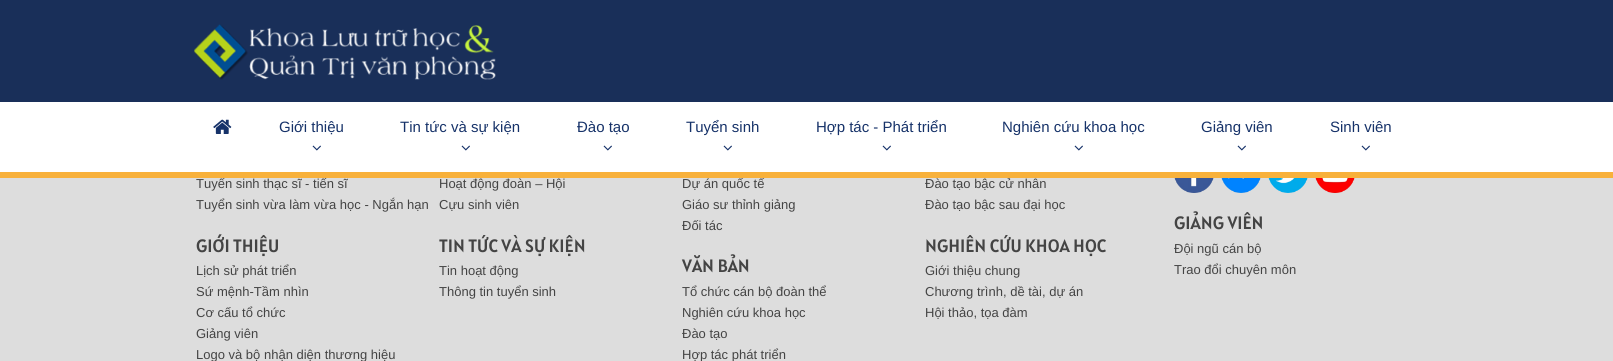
#include <cairo.h>
#include <math.h>
#include <stddef.h>


static void set_color(cairo_t *cr, unsigned color) {
    cairo_set_source_rgb(cr, (color >> 16) / 255.0, (color >> 8 & 255) / 255.0, (color & 255) / 255.0);
}

static void draw_text(cairo_t *cr, double x, double y, const char *s, const char *family, double size, int italic, int bold, unsigned color) {
    cairo_select_font_face(cr, family, italic ? CAIRO_FONT_SLANT_ITALIC : CAIRO_FONT_SLANT_NORMAL,
        bold ? CAIRO_FONT_WEIGHT_BOLD : CAIRO_FONT_WEIGHT_NORMAL);
    cairo_set_font_size(cr, size);
    set_color(cr, color);
    cairo_move_to(cr, x, y);
    cairo_show_text(cr, s);
}

static void fill_rect(cairo_t *cr, double x, double y, double w, double h, unsigned color) {
    set_color(cr, color);
    cairo_rectangle(cr, x, y, w, h);
    cairo_fill(cr);
}

static void draw_image(cairo_t *cr, const char *path, double x, double y, double w, double h) {
    cairo_surface_t *image = cairo_image_surface_create_from_png(path);
    cairo_save(cr);
    cairo_set_source_surface(cr, image, x, y);
    cairo_rectangle(cr, x, y, w, h);
    cairo_fill(cr);
    cairo_restore(cr);
    cairo_surface_destroy(image);
}

int main(void) {
    cairo_surface_t *surface = cairo_image_surface_create(CAIRO_FORMAT_RGB24, 1613, 361);
    cairo_t *cr = cairo_create(surface);
    cairo_font_options_t *options = cairo_font_options_create();
    cairo_font_options_set_hint_metrics(options, CAIRO_HINT_METRICS_OFF);
    cairo_font_options_set_hint_style(options, CAIRO_HINT_STYLE_NONE);
    cairo_set_font_options(cr, options);
    cairo_set_miter_limit(cr, 4);
    set_color(cr, 0xDDDDDD);
    cairo_paint(cr);
    draw_text(cr, 196, 188, "Tuyển sinh thạc sĩ - tiến sĩ", "Liberation Sans", 13, 0, 0, 0x444444);
    fill_rect(cr, 0, 172, 1613, 6, 0xF8B13B);
    fill_rect(cr, 0, 0, 1613, 102, 0x192F59);
    draw_image(cr, "assets/img1.png", 194, 24, 302, 56);
    fill_rect(cr, 0, 102, 1613, 70, 0xFFFFFF);
    draw_image(cr, "assets/img2.png", 213, 119, 19, 15);
    draw_text(cr, 279, 132, "Giới thiệu", "Liberation Sans", 15, 0, 0, 0x163269);
    draw_image(cr, "assets/img3.png", 312, 145, 9, 6);
    draw_text(cr, 400, 132, "Tin tức và sự kiện", "Liberation Sans", 15, 0, 0, 0x163269);
    draw_image(cr, "assets/img3.png", 461, 145, 9, 6);
    draw_text(cr, 577, 132, "Đào tạo", "Liberation Sans", 15, 0, 0, 0x163269);
    draw_image(cr, "assets/img3.png", 603, 145, 9, 6);
    draw_text(cr, 686, 132, "Tuyển sinh", "Liberation Sans", 15, 0, 0, 0x163269);
    draw_image(cr, "assets/img3.png", 723, 145, 9, 6);
    draw_text(cr, 816, 132, "Hợp tác - Phát triển", "Liberation Sans", 15, 0, 0, 0x163269);
    draw_image(cr, "assets/img3.png", 882, 145, 9, 6);
    draw_text(cr, 1002, 132, "Nghiên cứu khoa học", "Liberation Sans", 15, 0, 0, 0x163269);
    draw_image(cr, "assets/img3.png", 1074, 145, 9, 6);
    draw_text(cr, 1201, 132, "Giảng viên", "Liberation Sans", 15, 0, 0, 0x163269);
    draw_image(cr, "assets/img3.png", 1237, 145, 9, 6);
    draw_text(cr, 1330, 132, "Sinh viên", "Liberation Sans", 15, 0, 0, 0x163269);
    draw_image(cr, "assets/img3.png", 1361, 145, 9, 6);
    draw_text(cr, 196, 209, "Tuyển sinh vừa làm vừa học - Ngắn hạn", "Liberation Sans", 13, 0, 0, 0x444444);
    draw_text(cr, 196, 252, "GIỚI THIỆU", "Alatsi", 18, 0, 0, 0x444444);
    draw_text(cr, 196, 275, "Lịch sử phát triển", "Liberation Sans", 13, 0, 0, 0x444444);
    draw_text(cr, 196, 296, "Sứ mệnh-Tầm nhìn", "Liberation Sans", 13, 0, 0, 0x444444);
    draw_text(cr, 196, 317, "Cơ cấu tổ chức", "Liberation Sans", 13, 0, 0, 0x444444);
    draw_text(cr, 196, 338, "Giảng viên", "Liberation Sans", 13, 0, 0, 0x444444);
    draw_text(cr, 196, 359, "Logo và bộ nhận diện thương hiệu", "Liberation Sans", 13, 0, 0, 0x444444);
    draw_text(cr, 439, 188, "Hoạt động đoàn – Hội", "Liberation Sans", 13, 0, 0, 0x444444);
    draw_text(cr, 439, 209, "Cựu sinh viên", "Liberation Sans", 13, 0, 0, 0x444444);
    draw_text(cr, 439, 252, "TIN TỨC VÀ SỰ KIỆN", "Alatsi", 18, 0, 0, 0x444444);
    draw_text(cr, 439, 275, "Tin hoạt động", "Liberation Sans", 13, 0, 0, 0x444444);
    draw_text(cr, 439, 296, "Thông tin tuyển sinh", "Liberation Sans", 13, 0, 0, 0x444444);
    draw_text(cr, 682, 188, "Dự án quốc tế", "Liberation Sans", 13, 0, 0, 0x444444);
    draw_text(cr, 682, 209, "Giáo sư thỉnh giảng", "Liberation Sans", 13, 0, 0, 0x444444);
    draw_text(cr, 682, 230, "Đối tác", "Liberation Sans", 13, 0, 0, 0x444444);
    draw_text(cr, 682, 272, "VĂN BẢN", "Alatsi", 18, 0, 0, 0x444444);
    draw_text(cr, 682, 296, "Tổ chức cán bộ đoàn thể", "Liberation Sans", 13, 0, 0, 0x444444);
    draw_text(cr, 682, 317, "Nghiên cứu khoa học", "Liberation Sans", 13, 0, 0, 0x444444);
    draw_text(cr, 682, 338, "Đào tạo", "Liberation Sans", 13, 0, 0, 0x444444);
    draw_text(cr, 682, 359, "Hợp tác phát triển", "Liberation Sans", 13, 0, 0, 0x444444);
    draw_text(cr, 925, 188, "Đào tạo bậc cử nhân", "Liberation Sans", 13, 0, 0, 0x444444);
    draw_text(cr, 925, 209, "Đào tạo bậc sau đại học", "Liberation Sans", 13, 0, 0, 0x444444);
    draw_text(cr, 925, 252, "NGHIÊN CỨU KHOA HỌC", "Alatsi", 18, 0, 0, 0x444444);
    draw_text(cr, 925, 275, "Giới thiệu chung", "Liberation Sans", 13, 0, 0, 0x444444);
    draw_text(cr, 925, 296, "Chương trình, dề tài, dự án", "Liberation Sans", 13, 0, 0, 0x444444);
    draw_text(cr, 925, 317, "Hội thảo, tọa đàm", "Liberation Sans", 13, 0, 0, 0x444444);
    draw_image(cr, "assets/img4.png", 1174, 178, 40, 15);
    draw_image(cr, "assets/img5.png", 1221, 178, 40, 15);
    draw_image(cr, "assets/img6.png", 1268, 178, 40, 15);
    draw_image(cr, "assets/img7.png", 1315, 178, 40, 15);
    draw_text(cr, 1174, 229, "GIẢNG VIÊN", "Alatsi", 18, 0, 0, 0x444444);
    draw_text(cr, 1174, 253, "Đội ngũ cán bộ", "Liberation Sans", 13, 0, 0, 0x444444);
    draw_text(cr, 1174, 274, "Trao đổi chuyên môn", "Liberation Sans", 13, 0, 0, 0x444444);
    cairo_surface_write_to_png(surface, "output.png");
    cairo_font_options_destroy(options);
    cairo_destroy(cr);
    cairo_surface_destroy(surface);
    return 0;
}
